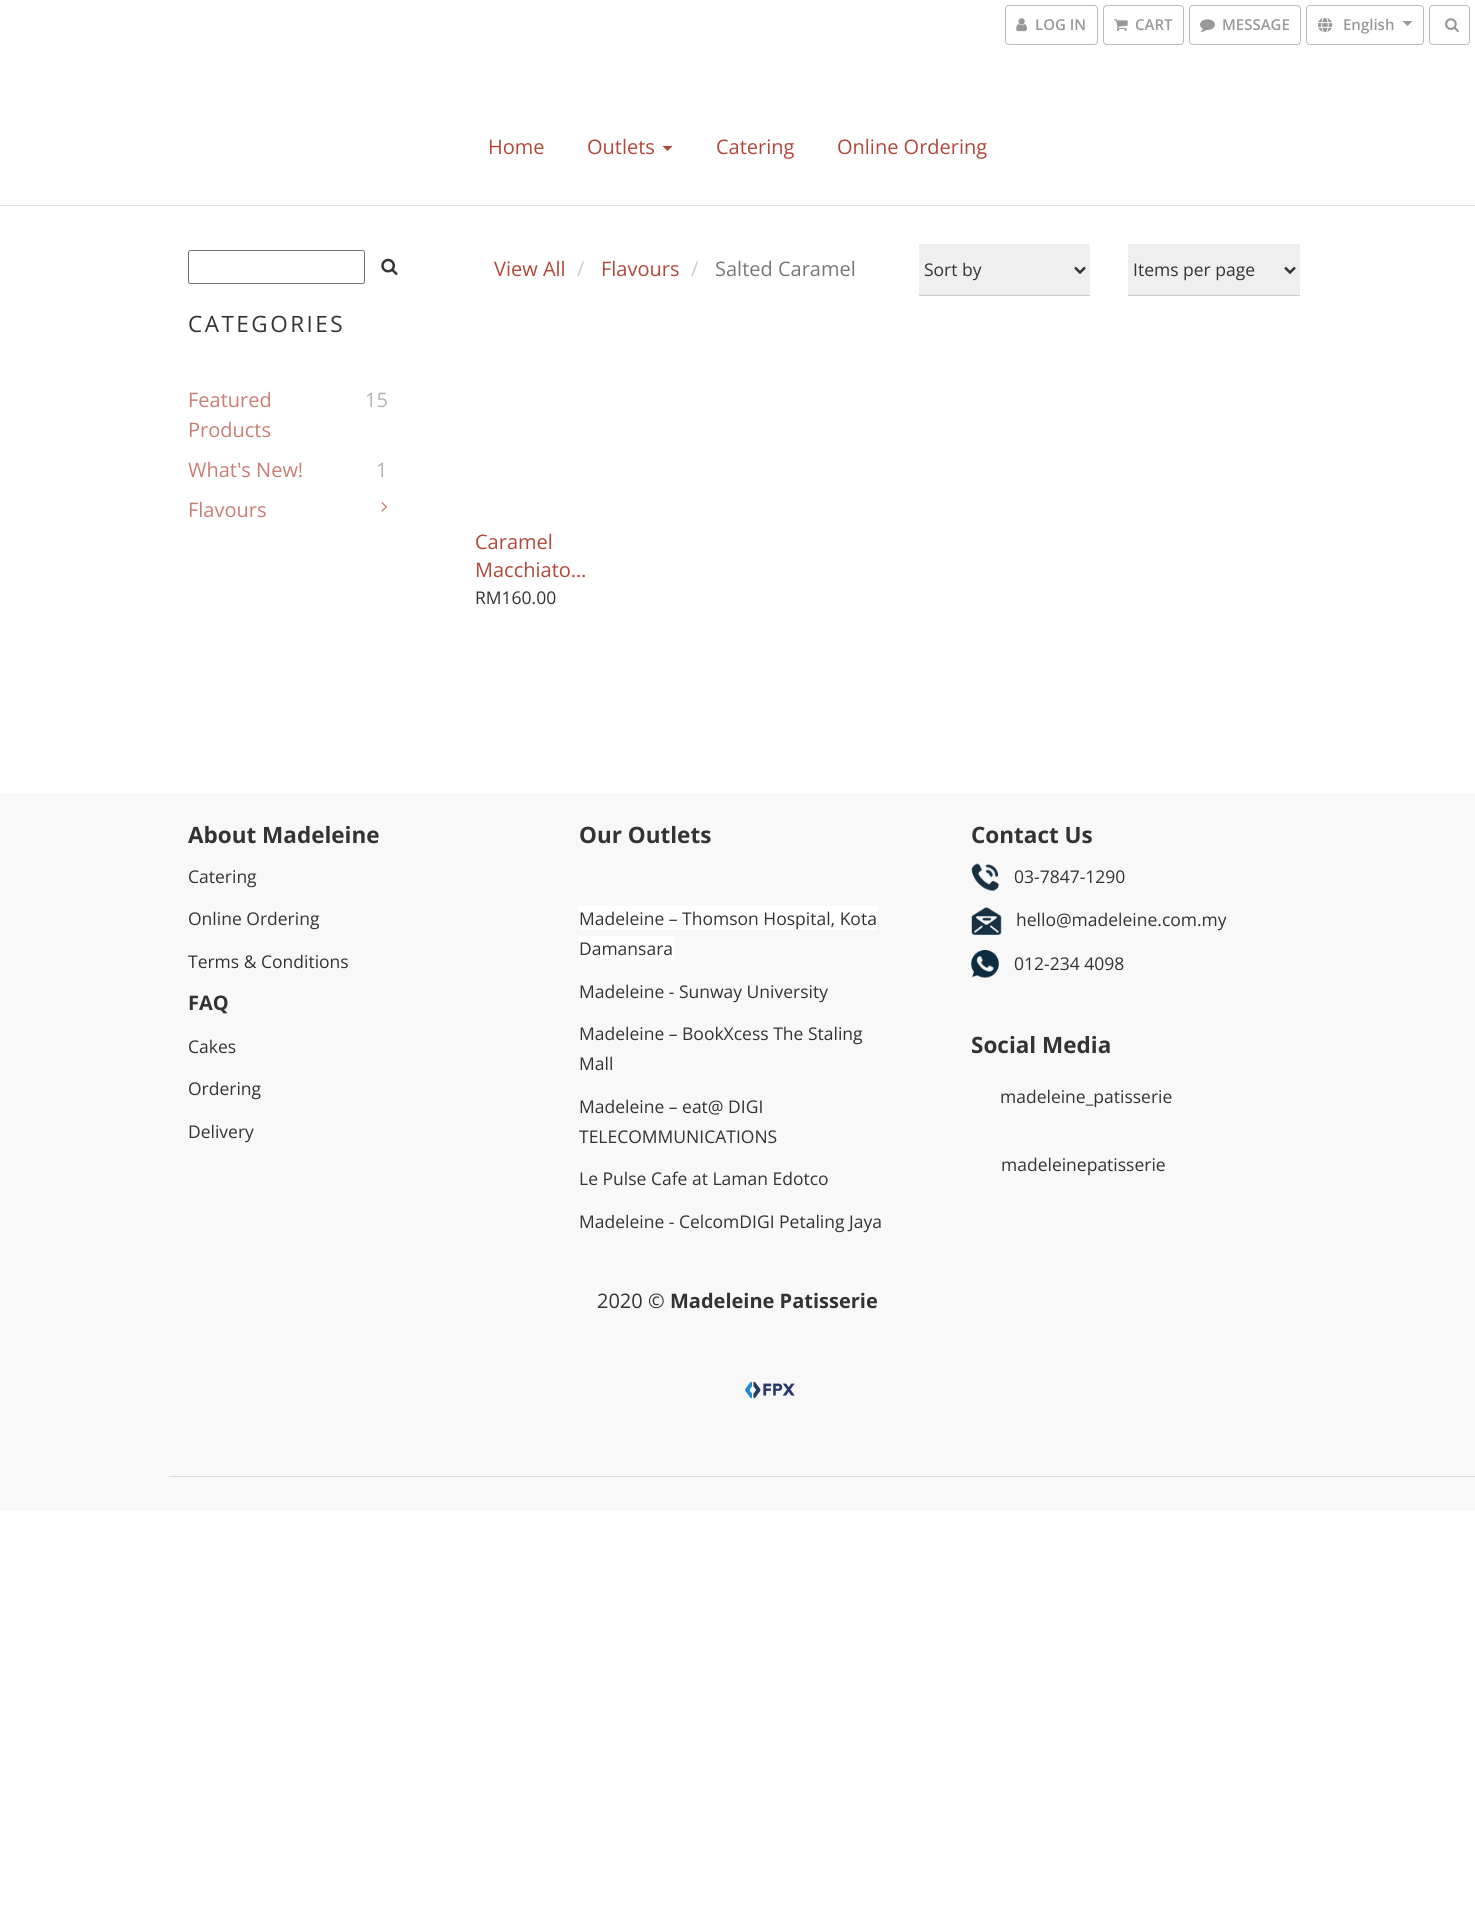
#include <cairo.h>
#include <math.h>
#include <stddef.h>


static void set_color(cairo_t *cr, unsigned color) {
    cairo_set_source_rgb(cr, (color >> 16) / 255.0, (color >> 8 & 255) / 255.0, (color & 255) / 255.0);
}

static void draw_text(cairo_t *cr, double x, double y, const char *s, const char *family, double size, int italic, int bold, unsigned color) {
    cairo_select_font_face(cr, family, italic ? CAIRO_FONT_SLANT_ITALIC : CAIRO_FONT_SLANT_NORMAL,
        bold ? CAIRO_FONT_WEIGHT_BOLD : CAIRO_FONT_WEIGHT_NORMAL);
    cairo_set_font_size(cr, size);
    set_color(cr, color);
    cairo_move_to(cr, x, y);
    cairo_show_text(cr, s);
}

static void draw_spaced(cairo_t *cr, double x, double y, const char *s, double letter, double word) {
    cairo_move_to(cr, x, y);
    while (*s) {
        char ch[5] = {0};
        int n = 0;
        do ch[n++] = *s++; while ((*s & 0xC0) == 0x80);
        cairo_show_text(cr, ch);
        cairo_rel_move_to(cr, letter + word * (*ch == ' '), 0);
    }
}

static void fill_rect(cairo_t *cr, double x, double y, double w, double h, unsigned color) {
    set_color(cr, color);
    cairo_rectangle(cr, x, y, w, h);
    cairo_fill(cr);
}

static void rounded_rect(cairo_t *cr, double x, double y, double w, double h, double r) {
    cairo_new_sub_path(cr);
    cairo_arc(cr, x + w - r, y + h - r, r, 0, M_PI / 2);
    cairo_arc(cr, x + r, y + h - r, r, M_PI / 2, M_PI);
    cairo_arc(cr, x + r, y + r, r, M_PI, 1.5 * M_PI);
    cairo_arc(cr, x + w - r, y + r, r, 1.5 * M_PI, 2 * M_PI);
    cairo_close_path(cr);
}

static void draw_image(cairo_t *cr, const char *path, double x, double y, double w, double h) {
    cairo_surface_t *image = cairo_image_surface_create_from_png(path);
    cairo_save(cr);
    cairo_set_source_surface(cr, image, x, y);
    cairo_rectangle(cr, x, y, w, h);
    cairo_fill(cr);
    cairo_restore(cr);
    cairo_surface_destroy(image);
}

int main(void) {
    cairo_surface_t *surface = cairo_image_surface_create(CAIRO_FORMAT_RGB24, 1475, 1931);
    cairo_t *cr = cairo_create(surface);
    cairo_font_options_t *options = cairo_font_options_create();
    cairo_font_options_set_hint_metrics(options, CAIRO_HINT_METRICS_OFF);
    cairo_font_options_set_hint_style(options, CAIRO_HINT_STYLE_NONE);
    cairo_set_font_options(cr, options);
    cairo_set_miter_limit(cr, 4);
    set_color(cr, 0xFFFFFF);
    cairo_paint(cr);
    rounded_rect(cr, 1005.5, 5.5, 92, 39, 3.5);
    set_color(cr, 0xBBBBBB);
    cairo_set_line_width(cr, 1);
    cairo_stroke(cr);
    draw_image(cr, "assets/img1.png", 1016, 18, 11, 14);
    draw_text(cr, 1035, 30, "LOG IN", "Open Sans SemiBold", 15, 0, 0, 0x999999);
    rounded_rect(cr, 1103.5, 5.5, 80, 39, 3.5);
    set_color(cr, 0xBBBBBB);
    cairo_stroke(cr);
    draw_image(cr, "assets/img2.png", 1113, 19, 15, 12);
    draw_text(cr, 1135, 30, "CART", "Open Sans SemiBold", 15, 0, 0, 0x999999);
    rounded_rect(cr, 1189.5, 5.5, 111, 39, 3.5);
    set_color(cr, 0xBBBBBB);
    cairo_stroke(cr);
    draw_image(cr, "assets/img3.png", 1200, 19, 15, 14);
    draw_text(cr, 1222, 30, "MESSAGE", "Open Sans SemiBold", 15, 0, 0, 0x999999);
    rounded_rect(cr, 1306.5, 5.5, 117, 39, 3.5);
    set_color(cr, 0xBBBBBB);
    cairo_stroke(cr);
    draw_image(cr, "assets/img4.png", 1318, 18, 15, 15);
    draw_text(cr, 1343, 30, "English", "Open Sans SemiBold", 15, 0, 0, 0x999999);
    cairo_new_path(cr);
    cairo_move_to(cr, 1402.5, 21);
    cairo_line_to(cr, 1412.5, 21);
    cairo_line_to(cr, 1407.5, 26);
    cairo_close_path(cr);
    cairo_fill(cr);
    rounded_rect(cr, 1429.5, 5.5, 40, 39, 3.5);
    set_color(cr, 0xBBBBBB);
    cairo_stroke(cr);
    draw_image(cr, "assets/img5.png", 1445, 18, 14, 15);
    fill_rect(cr, 0, 205, 1475, 1, 0xE0E0E0);
    draw_text(cr, 488, 154, "Home", "Open Sans", 20, 0, 0, 0xB14739);
    draw_text(cr, 587, 154, "Outlets", "Open Sans", 20, 0, 0, 0xB14739);
    cairo_new_path(cr);
    cairo_move_to(cr, 662.5, 146);
    cairo_line_to(cr, 672.5, 146);
    cairo_line_to(cr, 667.5, 151);
    cairo_close_path(cr);
    cairo_fill(cr);
    draw_text(cr, 716, 154, "Catering", "Open Sans", 20, 0, 0, 0xB14739);
    draw_text(cr, 837, 154, "Online Ordering", "Open Sans", 20, 0, 0, 0xB14739);
    rounded_rect(cr, 188.5, 250.5, 176, 33, 2);
    set_color(cr, 0x767676);
    cairo_stroke(cr);
    draw_image(cr, "assets/img6.png", 381, 258, 17, 17);
    cairo_set_font_size(cr, 22.5);
    set_color(cr, 0x333333);
    draw_spaced(cr, 188, 332, "CATEGORIES", 2.5, 0);
    draw_text(cr, 188, 407, "Featured", "Open Sans", 20, 0, 0, 0xC87E74);
    draw_text(cr, 188, 437, "Products", "Open Sans", 20, 0, 0, 0xC87E74);
    draw_text(cr, 365, 407, "15", "Open Sans", 20, 0, 0, 0xB3B3B3);
    draw_text(cr, 188, 477, "What's New!", "Open Sans", 20, 0, 0, 0xC87E74);
    draw_text(cr, 376, 477, "1", "Open Sans", 20, 0, 0, 0xB3B3B3);
    draw_text(cr, 188, 517, "Flavours", "Open Sans", 20, 0, 0, 0xC87E74);
    draw_image(cr, "assets/img7.png", 381, 502, 6, 10);
    draw_text(cr, 494, 276, "View All", "Open Sans", 20, 0, 0, 0xB14739);
    draw_text(cr, 577, 276, "/", "Open Sans", 20, 0, 0, 0xCCCCCC);
    draw_text(cr, 601, 276, "Flavours", "Open Sans", 20, 0, 0, 0xB14739);
    draw_text(cr, 691, 276, "/", "Open Sans", 20, 0, 0, 0xCCCCCC);
    draw_text(cr, 715, 276, "Salted Caramel", "Open Sans", 20, 0, 0, 0x777777);
    fill_rect(cr, 919, 244, 171, 51, 0xEFEFEF);
    fill_rect(cr, 919, 295, 171, 1, 0xCCCCCC);
    cairo_new_path(cr);
    cairo_move_to(cr, 1075, 267.5);
    cairo_line_to(cr, 1080, 272.5);
    cairo_line_to(cr, 1085, 267.5);
    set_color(cr, 0x333333);
    cairo_set_line_width(cr, 2.5);
    cairo_stroke(cr);
    draw_text(cr, 924, 276, "Sort by", "Open Sans", 17.5, 0, 0, 0x333333);
    fill_rect(cr, 1128, 244, 172, 51, 0xEFEFEF);
    fill_rect(cr, 1128, 295, 172, 1, 0xCCCCCC);
    cairo_new_path(cr);
    cairo_move_to(cr, 1285, 267.5);
    cairo_line_to(cr, 1290, 272.5);
    cairo_line_to(cr, 1295, 267.5);
    set_color(cr, 0x333333);
    cairo_stroke(cr);
    draw_text(cr, 1133, 276, "Items per page", "Open Sans", 17.5, 0, 0, 0x333333);
    draw_text(cr, 475, 549, "Caramel", "Open Sans", 20, 0, 0, 0xB14739);
    draw_text(cr, 475, 577, "Macchiato…", "Open Sans", 20, 0, 0, 0xB14739);
    draw_text(cr, 475, 604, "RM160.00", "Open Sans", 17.5, 0, 0, 0x333333);
    fill_rect(cr, 0, 793, 1475, 718, 0xF8F8F8);
    draw_text(cr, 188, 843, "About Madeleine", "Open Sans", 22.5, 0, 1, 0x333333);
    draw_text(cr, 188, 883, "Catering", "Open Sans", 17.5, 0, 0, 0x333333);
    draw_text(cr, 188, 925, "Online Ordering", "Open Sans", 17.5, 0, 0, 0x333333);
    draw_text(cr, 188, 968, "Terms & Conditions", "Open Sans", 17.5, 0, 0, 0x333333);
    draw_text(cr, 188, 1010, "FAQ", "Open Sans", 20, 0, 1, 0x333333);
    draw_text(cr, 188, 1053, "Cakes", "Open Sans", 17.5, 0, 0, 0x333333);
    draw_text(cr, 188, 1095, "Ordering", "Open Sans", 17.5, 0, 0, 0x333333);
    draw_text(cr, 188, 1138, "Delivery", "Open Sans", 17.5, 0, 0, 0x333333);
    draw_text(cr, 579, 843, "Our Outlets", "Open Sans", 22.5, 0, 1, 0x333333);
    fill_rect(cr, 579, 906, 299, 24, 0xFFFFFF);
    draw_text(cr, 579, 925, "Madeleine – Thomson Hospital, Kota", "Open Sans", 17.5, 0, 0, 0x333333);
    fill_rect(cr, 579, 936, 95, 24, 0xFFFFFF);
    draw_text(cr, 579, 955, "Damansara", "Open Sans", 17.5, 0, 0, 0x333333);
    draw_text(cr, 579, 998, "Madeleine - Sunway University", "Open Sans", 17.5, 0, 0, 0x333333);
    draw_text(cr, 579, 1040, "Madeleine – BookXcess The Staling", "Open Sans", 17.5, 0, 0, 0x333333);
    draw_text(cr, 579, 1070, "Mall", "Open Sans", 17.5, 0, 0, 0x333333);
    draw_text(cr, 579, 1113, "Madeleine – eat@ DIGI", "Open Sans", 17.5, 0, 0, 0x333333);
    draw_text(cr, 579, 1143, "TELECOMMUNICATIONS", "Open Sans", 17.5, 0, 0, 0x333333);
    draw_text(cr, 579, 1185, "Le Pulse Cafe at Laman Edotco", "Open Sans", 17.5, 0, 0, 0x333333);
    draw_text(cr, 579, 1228, "Madeleine - CelcomDIGI Petaling Jaya", "Open Sans", 17.5, 0, 0, 0x333333);
    draw_text(cr, 971, 843, "Contact Us", "Open Sans", 22.5, 0, 1, 0x333333);
    draw_image(cr, "assets/img8.png", 971, 863, 28, 29);
    draw_text(cr, 1014, 883, "03-7847-1290", "Open Sans", 17.5, 0, 0, 0x333333);
    draw_image(cr, "assets/img9.png", 971, 907, 31, 28);
    draw_text(cr, 1016, 926, "hello@madeleine.com.my", "Open Sans", 17.5, 0, 0, 0x333333);
    draw_image(cr, "assets/img10.png", 971, 950, 28, 28);
    draw_text(cr, 1014, 970, "012-234 4098", "Open Sans", 17.5, 0, 0, 0x333333);
    draw_text(cr, 971, 1053, "Social Media", "Open Sans", 22.5, 0, 1, 0x333333);
    draw_text(cr, 1000, 1103, "madeleine_patisserie", "Open Sans", 17.5, 0, 0, 0x333333);
    draw_text(cr, 1001, 1171, "madeleinepatisserie", "Open Sans", 17.5, 0, 0, 0x333333);
    draw_text(cr, 597, 1308, "2020 ©", "Open Sans", 20, 0, 0, 0x333333);
    draw_text(cr, 670, 1308, "Madeleine Patisserie", "Open Sans", 20, 0, 1, 0x333333);
    draw_image(cr, "assets/img11.png", 745, 1381, 50, 18);
    fill_rect(cr, 169, 1476, 1306, 1, 0xDDDDDD);
    cairo_surface_write_to_png(surface, "output.png");
    cairo_font_options_destroy(options);
    cairo_destroy(cr);
    cairo_surface_destroy(surface);
    return 0;
}
